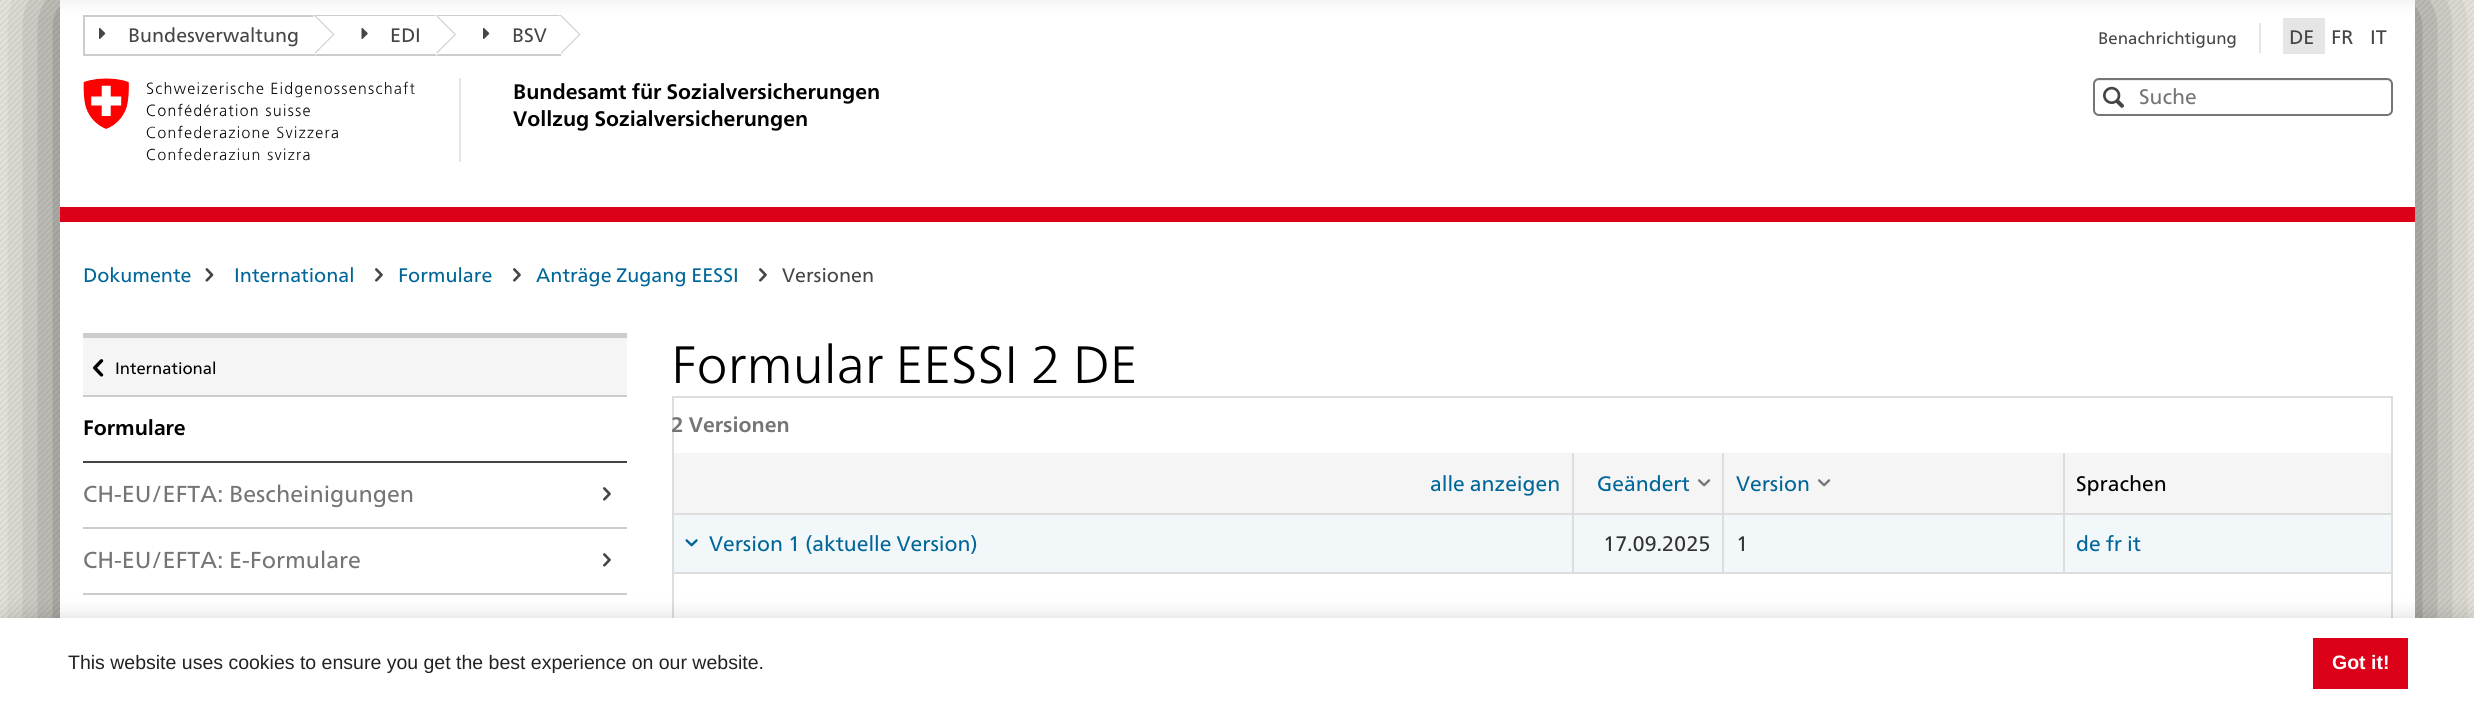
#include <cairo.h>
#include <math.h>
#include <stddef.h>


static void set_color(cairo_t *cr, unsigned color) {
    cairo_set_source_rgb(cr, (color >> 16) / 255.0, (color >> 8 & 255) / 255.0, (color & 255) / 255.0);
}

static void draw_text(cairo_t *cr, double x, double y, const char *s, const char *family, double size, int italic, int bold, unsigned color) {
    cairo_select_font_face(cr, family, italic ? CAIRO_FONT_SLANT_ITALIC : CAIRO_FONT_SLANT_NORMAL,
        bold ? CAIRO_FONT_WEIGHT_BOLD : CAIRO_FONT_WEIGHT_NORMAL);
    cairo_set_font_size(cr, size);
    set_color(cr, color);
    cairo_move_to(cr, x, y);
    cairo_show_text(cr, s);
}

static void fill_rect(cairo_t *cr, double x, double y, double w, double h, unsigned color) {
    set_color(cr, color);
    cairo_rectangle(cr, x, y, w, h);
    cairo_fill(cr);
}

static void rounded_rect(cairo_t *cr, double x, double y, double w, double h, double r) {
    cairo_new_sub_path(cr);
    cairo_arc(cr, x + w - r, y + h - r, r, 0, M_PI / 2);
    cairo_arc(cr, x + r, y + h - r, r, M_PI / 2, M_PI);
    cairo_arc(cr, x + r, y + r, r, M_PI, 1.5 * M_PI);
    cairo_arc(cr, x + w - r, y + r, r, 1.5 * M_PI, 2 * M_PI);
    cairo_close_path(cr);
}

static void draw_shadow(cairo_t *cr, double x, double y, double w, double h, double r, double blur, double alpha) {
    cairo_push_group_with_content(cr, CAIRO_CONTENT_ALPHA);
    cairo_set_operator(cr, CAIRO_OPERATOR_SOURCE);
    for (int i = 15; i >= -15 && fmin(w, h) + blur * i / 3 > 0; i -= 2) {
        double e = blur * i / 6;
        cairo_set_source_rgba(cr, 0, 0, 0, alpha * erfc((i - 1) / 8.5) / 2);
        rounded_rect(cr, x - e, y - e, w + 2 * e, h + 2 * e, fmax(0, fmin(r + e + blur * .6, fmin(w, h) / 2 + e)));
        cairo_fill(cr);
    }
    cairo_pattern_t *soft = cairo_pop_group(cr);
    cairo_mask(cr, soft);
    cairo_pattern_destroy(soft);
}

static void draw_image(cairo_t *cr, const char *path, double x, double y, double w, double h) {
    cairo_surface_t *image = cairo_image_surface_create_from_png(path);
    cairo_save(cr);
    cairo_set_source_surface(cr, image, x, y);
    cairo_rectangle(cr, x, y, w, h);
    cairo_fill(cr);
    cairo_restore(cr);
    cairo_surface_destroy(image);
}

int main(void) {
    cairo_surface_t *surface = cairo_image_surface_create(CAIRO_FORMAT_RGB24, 2474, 707);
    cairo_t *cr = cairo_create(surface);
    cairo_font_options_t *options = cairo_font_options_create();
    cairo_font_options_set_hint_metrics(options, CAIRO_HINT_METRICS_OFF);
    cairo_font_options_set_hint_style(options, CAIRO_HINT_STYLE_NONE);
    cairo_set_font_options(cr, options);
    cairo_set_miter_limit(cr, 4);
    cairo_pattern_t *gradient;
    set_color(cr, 0xFFFFFF);
    cairo_paint(cr);
    draw_image(cr, "assets/img1.png", 0, 0, 2474, 618);
    set_color(cr, 0x000000);
    draw_shadow(cr, 60, 0, 2355, 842, 0, 45, 0.6);
    fill_rect(cr, 60, 222, 2355, 396, 0xFFFFFF);
    gradient = cairo_pattern_create_linear(1238, 0, 1238, 207);
    cairo_pattern_add_color_stop_rgba(gradient, 0, 0.961, 0.961, 0.961, 1);
    cairo_pattern_add_color_stop_rgba(gradient, 0.07, 1, 1, 1, 1);
    cairo_pattern_add_color_stop_rgba(gradient, 1, 1, 1, 1, 1);
    cairo_set_source(cr, gradient);
    cairo_pattern_destroy(gradient);
    cairo_rectangle(cr, 60, 0, 2355, 207);
    cairo_fill(cr);
    fill_rect(cr, 83, 15, 232, 2, 0xCCCCCC);
    fill_rect(cr, 83, 54, 232, 2, 0xCCCCCC);
    fill_rect(cr, 83, 15, 2, 41, 0xCCCCCC);
    cairo_new_path(cr);
    cairo_move_to(cr, 315, 54);
    cairo_line_to(cr, 315, 15);
    cairo_line_to(cr, 334.5, 34.5);
    cairo_close_path(cr);
    cairo_fill(cr);
    set_color(cr, 0xFFFFFF);
    cairo_new_path(cr);
    cairo_move_to(cr, 313.5, 54);
    cairo_line_to(cr, 313.5, 15);
    cairo_line_to(cr, 333, 34.5);
    cairo_close_path(cr);
    cairo_fill(cr);
    draw_image(cr, "assets/img2.png", 99, 27, 7, 12);
    draw_text(cr, 128, 42, "Bundesverwaltung", "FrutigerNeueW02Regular", 19.5, 0, 0, 0x454545);
    set_color(cr, 0xCCCCCC);
    cairo_new_path(cr);
    cairo_move_to(cr, 315, 15);
    cairo_line_to(cr, 436, 15);
    cairo_line_to(cr, 436, 16);
    cairo_line_to(cr, 316, 16);
    cairo_close_path(cr);
    cairo_fill(cr);
    cairo_new_path(cr);
    cairo_move_to(cr, 436, 56);
    cairo_line_to(cr, 315, 56);
    cairo_line_to(cr, 316, 54);
    cairo_line_to(cr, 436, 54);
    cairo_close_path(cr);
    cairo_fill(cr);
    cairo_new_path(cr);
    cairo_move_to(cr, 436.5, 54);
    cairo_line_to(cr, 436.5, 15);
    cairo_line_to(cr, 456, 34.5);
    cairo_close_path(cr);
    cairo_fill(cr);
    set_color(cr, 0xFFFFFF);
    cairo_new_path(cr);
    cairo_move_to(cr, 435, 54);
    cairo_line_to(cr, 435, 15);
    cairo_line_to(cr, 454.5, 34.5);
    cairo_close_path(cr);
    cairo_fill(cr);
    draw_image(cr, "assets/img3.png", 361, 27, 7, 12);
    draw_text(cr, 390, 42, "EDI", "FrutigerNeueW02Regular", 19.5, 0, 0, 0x454545);
    set_color(cr, 0xCCCCCC);
    cairo_new_path(cr);
    cairo_move_to(cr, 436, 15);
    cairo_line_to(cr, 561, 15);
    cairo_line_to(cr, 561, 16);
    cairo_line_to(cr, 438, 16);
    cairo_close_path(cr);
    cairo_fill(cr);
    cairo_new_path(cr);
    cairo_move_to(cr, 561, 56);
    cairo_line_to(cr, 436, 56);
    cairo_line_to(cr, 438, 54);
    cairo_line_to(cr, 561, 54);
    cairo_close_path(cr);
    cairo_fill(cr);
    cairo_new_path(cr);
    cairo_move_to(cr, 561, 54);
    cairo_line_to(cr, 561, 15);
    cairo_line_to(cr, 580.5, 34.5);
    cairo_close_path(cr);
    cairo_fill(cr);
    set_color(cr, 0xFFFFFF);
    cairo_new_path(cr);
    cairo_move_to(cr, 559.5, 54);
    cairo_line_to(cr, 559.5, 15);
    cairo_line_to(cr, 579, 34.5);
    cairo_close_path(cr);
    cairo_fill(cr);
    draw_image(cr, "assets/img2.png", 483, 27, 7, 12);
    draw_text(cr, 512, 42, "BSV", "FrutigerNeueW02Regular", 19.5, 0, 0, 0x454545);
    draw_text(cr, 2098, 44, "Benachrichtigung", "FrutigerNeueW02Regular", 16.75, 0, 0, 0x454545);
    fill_rect(cr, 2259, 23, 2, 30, 0xE5E5E5);
    fill_rect(cr, 2283, 18, 42, 36, 0xE5E5E5);
    draw_text(cr, 2289, 44, "DE", "FrutigerNeueW02Regular", 19.6, 0, 0, 0x454545);
    draw_text(cr, 2331, 44, "FR", "FrutigerNeueW02Regular", 19.6, 0, 0, 0x454545);
    draw_text(cr, 2370, 44, "IT", "FrutigerNeueW02Regular", 19.6, 0, 0, 0x454545);
    fill_rect(cr, 459, 78, 2, 84, 0xE5E5E5);
    draw_image(cr, "assets/img4.png", 83, 78, 332, 83);
    draw_text(cr, 513, 99, "Bundesamt für Sozialversicherungen", "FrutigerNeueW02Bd", 21, 0, 1, 0x000000);
    draw_text(cr, 513, 126, "Vollzug Sozialversicherungen", "FrutigerNeueW02Bd", 21, 0, 1, 0x000000);
    set_color(cr, 0xECECEC);
    cairo_new_path(cr);
    cairo_move_to(cr, 2098, 81);
    cairo_line_to(cr, 2386, 81);
    cairo_curve_to(cr, 2389, 81, 2391, 83, 2391, 86);
    cairo_line_to(cr, 2391, 85);
    cairo_curve_to(cr, 2391, 82, 2389, 80, 2386, 80);
    cairo_line_to(cr, 2099, 80);
    cairo_curve_to(cr, 2096, 80, 2094, 82, 2094, 85);
    cairo_line_to(cr, 2094, 86);
    cairo_curve_to(cr, 2094, 83, 2096, 81, 2098, 81);
    cairo_close_path(cr);
    cairo_fill(cr);
    rounded_rect(cr, 2094, 79, 298, 36, 5);
    set_color(cr, 0x757575);
    cairo_stroke(cr);
    draw_image(cr, "assets/img5.png", 2103, 86, 21, 22);
    draw_text(cr, 2139, 104, "Suche", "FrutigerNeueW02Regular", 21, 0, 0, 0x757575);
    fill_rect(cr, 60, 207, 2355, 15, 0xDC0018);
    draw_text(cr, 83, 282, "Dokumente", "FrutigerNeueW02Regular", 19.6, 0, 0, 0x006699);
    draw_image(cr, "assets/img6.png", 205, 268, 9, 14);
    draw_text(cr, 234, 282, "International", "FrutigerNeueW02Regular", 19.6, 0, 0, 0x006699);
    draw_image(cr, "assets/img7.png", 375, 268, 8, 14);
    draw_text(cr, 398, 282, "Formulare", "FrutigerNeueW02Regular", 19.6, 0, 0, 0x006699);
    draw_image(cr, "assets/img7.png", 513, 268, 8, 14);
    draw_text(cr, 536, 282, "Anträge Zugang EESSI", "FrutigerNeueW02Regular", 19.6, 0, 0, 0x006699);
    draw_image(cr, "assets/img7.png", 759, 268, 8, 14);
    draw_text(cr, 782, 282, "Versionen", "FrutigerNeueW02Regular", 19.6, 0, 0, 0x454545);
    fill_rect(cr, 83, 338, 544, 57, 0xF5F5F5);
    fill_rect(cr, 83, 333, 544, 5, 0xCCCCCC);
    fill_rect(cr, 83, 395, 544, 2, 0xCCCCCC);
    draw_image(cr, "assets/img8.png", 93, 359, 11, 18);
    draw_text(cr, 115, 374, "International", "FrutigerNeueW02Regular", 16.5, 0, 0, 0x000000);
    fill_rect(cr, 83, 461, 544, 2, 0x454545);
    draw_text(cr, 83, 435, "Formulare", "FrutigerNeueW02Bd", 21, 0, 1, 0x000000);
    fill_rect(cr, 83, 527, 544, 2, 0xCCCCCC);
    draw_text(cr, 83, 502, "CH-EU/EFTA: Bescheinigungen", "FrutigerNeueW02Regular", 23.1, 0, 0, 0x757575);
    draw_image(cr, "assets/img7.png", 603, 487, 8, 14);
    fill_rect(cr, 83, 593, 544, 2, 0xCCCCCC);
    draw_text(cr, 83, 568, "CH-EU/EFTA: E-Formulare", "FrutigerNeueW02Regular", 23.1, 0, 0, 0x757575);
    draw_image(cr, "assets/img7.png", 603, 553, 8, 14);
    draw_text(cr, 671, 383, "Formular EESSI 2 DE", "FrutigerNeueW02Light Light", 52.5, 0, 0, 0x000000);
    fill_rect(cr, 672, 396, 1721, 2, 0xDDDDDD);
    fill_rect(cr, 2391, 396, 2, 222, 0xDDDDDD);
    fill_rect(cr, 672, 396, 2, 222, 0xDDDDDD);
    draw_text(cr, 671, 432, "2 Versionen", "FrutigerNeueW02Bd", 21, 0, 1, 0x757575);
    fill_rect(cr, 674, 453, 898, 60, 0xF5F5F5);
    draw_text(cr, 1430, 491, "alle anzeigen", "FrutigerNeueW02Regular", 21, 0, 0, 0x006699);
    fill_rect(cr, 1574, 453, 148, 60, 0xF5F5F5);
    fill_rect(cr, 2063, 513, 330, 2, 0xDDDDDD);
    fill_rect(cr, 672, 572, 1721, 2, 0xDDDDDD);
    fill_rect(cr, 2063, 513, 2, 60, 0xDDDDDD);
    fill_rect(cr, 1722, 513, 342, 2, 0xDDDDDD);
    fill_rect(cr, 1722, 513, 2, 60, 0xDDDDDD);
    fill_rect(cr, 1572, 513, 152, 2, 0xDDDDDD);
    fill_rect(cr, 1572, 513, 2, 60, 0xDDDDDD);
    fill_rect(cr, 672, 513, 902, 2, 0xDDDDDD);
    fill_rect(cr, 1572, 453, 2, 62, 0xDDDDDD);
    draw_text(cr, 1597, 491, "Geändert", "FrutigerNeueW02Regular", 21, 0, 0, 0x006699);
    draw_image(cr, "assets/img9.png", 1698, 479, 13, 8);
    fill_rect(cr, 1724, 453, 339, 60, 0xF5F5F5);
    fill_rect(cr, 1722, 453, 2, 62, 0xDDDDDD);
    draw_text(cr, 1736, 491, "Version", "FrutigerNeueW02Regular", 21, 0, 0, 0x006699);
    draw_image(cr, "assets/img9.png", 1818, 479, 13, 8);
    fill_rect(cr, 2065, 453, 326, 60, 0xF5F5F5);
    fill_rect(cr, 2063, 453, 2, 62, 0xDDDDDD);
    draw_text(cr, 2076, 491, "Sprachen", "FrutigerNeueW02Regular", 21, 0, 0, 0x000000);
    fill_rect(cr, 674, 515, 898, 57, 0xF2F7F9);
    draw_image(cr, "assets/img10.png", 685, 539, 13, 8);
    draw_text(cr, 709, 551, "Version 1 (aktuelle Version)", "FrutigerNeueW02Regular", 21, 0, 0, 0x006699);
    fill_rect(cr, 1574, 515, 148, 57, 0xF2F7F9);
    draw_text(cr, 1603, 551, "17.09.2025", "FrutigerNeueW02Regular", 21, 0, 0, 0x333333);
    fill_rect(cr, 1724, 515, 339, 57, 0xF2F7F9);
    draw_text(cr, 1736, 551, "1", "FrutigerNeueW02Regular", 21, 0, 0, 0x333333);
    fill_rect(cr, 2065, 515, 326, 57, 0xF2F7F9);
    draw_text(cr, 2076, 551, "de fr it", "FrutigerNeueW02Regular", 21, 0, 0, 0x006699);
    set_color(cr, 0x000000);
    draw_shadow(cr, 0, 618, 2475, 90, 0, 11, 0.15);
    fill_rect(cr, 0, 618, 2474, 89, 0xFFFFFF);
    draw_text(cr, 68, 669, "This website uses cookies to ensure you get the best experience on our website.", "Liberation Sans", 19.5, 0, 0, 0x222222);
    fill_rect(cr, 2313, 638, 95, 51, 0xDC0018);
    draw_text(cr, 2332, 669, "Got it!", "Liberation Sans", 19.5, 0, 1, 0xFFFFFF);
    cairo_surface_write_to_png(surface, "output.png");
    cairo_font_options_destroy(options);
    cairo_destroy(cr);
    cairo_surface_destroy(surface);
    return 0;
}
